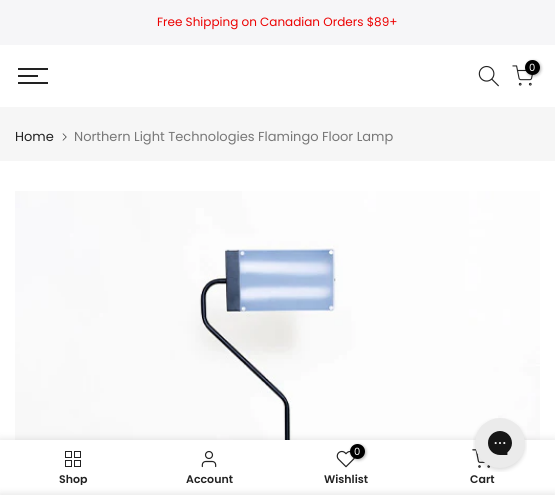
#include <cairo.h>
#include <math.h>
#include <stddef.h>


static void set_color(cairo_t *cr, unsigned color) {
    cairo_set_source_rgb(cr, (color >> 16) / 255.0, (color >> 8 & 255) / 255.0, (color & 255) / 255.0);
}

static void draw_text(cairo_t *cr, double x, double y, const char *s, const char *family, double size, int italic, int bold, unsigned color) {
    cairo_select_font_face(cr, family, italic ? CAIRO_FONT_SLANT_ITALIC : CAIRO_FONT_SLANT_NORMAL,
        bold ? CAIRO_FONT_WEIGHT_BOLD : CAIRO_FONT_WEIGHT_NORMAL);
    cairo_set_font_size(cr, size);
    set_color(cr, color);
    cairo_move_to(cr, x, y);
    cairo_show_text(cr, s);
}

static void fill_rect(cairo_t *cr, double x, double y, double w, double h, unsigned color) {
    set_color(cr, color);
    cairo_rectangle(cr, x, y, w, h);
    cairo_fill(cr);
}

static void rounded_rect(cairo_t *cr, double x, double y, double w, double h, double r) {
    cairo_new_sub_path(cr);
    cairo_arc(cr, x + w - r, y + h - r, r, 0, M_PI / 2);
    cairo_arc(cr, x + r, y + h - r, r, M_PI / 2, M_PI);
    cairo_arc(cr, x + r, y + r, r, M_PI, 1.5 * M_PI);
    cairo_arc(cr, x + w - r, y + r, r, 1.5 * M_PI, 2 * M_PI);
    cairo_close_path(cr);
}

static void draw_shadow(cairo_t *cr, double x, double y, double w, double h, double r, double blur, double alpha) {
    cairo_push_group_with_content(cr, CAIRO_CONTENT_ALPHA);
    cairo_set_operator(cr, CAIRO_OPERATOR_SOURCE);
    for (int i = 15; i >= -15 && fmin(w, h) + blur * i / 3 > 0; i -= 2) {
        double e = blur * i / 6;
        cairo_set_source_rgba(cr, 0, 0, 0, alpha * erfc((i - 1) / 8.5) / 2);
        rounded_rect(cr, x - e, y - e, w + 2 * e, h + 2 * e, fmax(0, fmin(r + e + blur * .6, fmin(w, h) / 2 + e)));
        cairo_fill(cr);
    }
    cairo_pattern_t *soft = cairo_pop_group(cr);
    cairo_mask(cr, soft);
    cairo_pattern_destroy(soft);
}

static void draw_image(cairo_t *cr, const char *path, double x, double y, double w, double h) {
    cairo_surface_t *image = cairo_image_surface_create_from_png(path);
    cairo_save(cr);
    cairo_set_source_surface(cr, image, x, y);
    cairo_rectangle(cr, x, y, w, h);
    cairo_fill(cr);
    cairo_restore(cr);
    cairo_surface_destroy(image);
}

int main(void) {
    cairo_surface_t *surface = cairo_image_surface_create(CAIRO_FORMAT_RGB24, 555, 495);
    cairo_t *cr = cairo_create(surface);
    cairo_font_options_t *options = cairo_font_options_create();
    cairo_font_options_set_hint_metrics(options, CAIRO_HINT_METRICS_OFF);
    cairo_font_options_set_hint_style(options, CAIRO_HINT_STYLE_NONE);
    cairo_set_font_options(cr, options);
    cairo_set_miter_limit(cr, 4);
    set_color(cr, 0xFFFFFF);
    cairo_paint(cr);
    fill_rect(cr, 0, 0, 555, 45, 0xF6F6F8);
    draw_text(cr, 157, 26, "Free Shipping on Canadian Orders $89+", "Poppins", 12, 0, 0, 0xEC0101);
    draw_image(cr, "assets/img1.png", 478, 65, 21, 22);
    draw_image(cr, "assets/img2.png", 512, 65, 21, 21);
    set_color(cr, 0x000000);
    draw_shadow(cr, 526, 61, 15, 15, 7.5, 1.5, 0.3);
    set_color(cr, 0x000000);
    cairo_arc(cr, 532.5, 67.5, 7.5, 0, 2 * M_PI);
    cairo_fill(cr);
    draw_text(cr, 529, 71, "0", "Poppins", 10, 0, 0, 0xFFFFFF);
    fill_rect(cr, 18, 68, 30, 2, 0x222222);
    fill_rect(cr, 18, 75, 20, 2, 0x222222);
    fill_rect(cr, 18, 82, 30, 2, 0x222222);
    fill_rect(cr, 0, 107, 555, 54, 0xF6F6F6);
    draw_text(cr, 15, 141, "Home", "Poppins", 13, 0, 0, 0x222222);
    draw_image(cr, "assets/img3.png", 62, 133, 5, 8);
    draw_text(cr, 74, 141, "Northern Light Technologies Flamingo Floor Lamp", "Poppins", 13, 0, 0, 0x777777);
    draw_image(cr, "assets/img4.png", 15, 191, 525, 249);
    set_color(cr, 0x000000);
    draw_shadow(cr, 0, 440, 555, 55, 0, 4.5, 0.12);
    fill_rect(cr, 0, 440, 555, 55, 0xFFFFFF);
    draw_image(cr, "assets/img5.png", 65, 451, 16, 16);
    cairo_save(cr);
    cairo_rectangle(cr, 15, 474, 116, 11);
    cairo_clip(cr);
    draw_text(cr, 59, 483, "Shop", "Poppins SemiBold", 11, 0, 0, 0x222222);
    cairo_restore(cr);
    draw_image(cr, "assets/img6.png", 201, 450, 16, 18);
    draw_text(cr, 186, 483, "Account", "Poppins SemiBold", 11, 0, 0, 0x222222);
    draw_image(cr, "assets/img7.png", 336, 450, 19, 18);
    set_color(cr, 0x000000);
    draw_shadow(cr, 351, 445, 15, 15, 7.5, 1.5, 0.3);
    set_color(cr, 0x000000);
    cairo_arc(cr, 357.5, 451.5, 7.5, 0, 2 * M_PI);
    cairo_fill(cr);
    draw_text(cr, 354, 455, "0", "Poppins", 10, 0, 0, 0xFFFFFF);
    draw_text(cr, 324, 483, "Wishlist", "Poppins SemiBold", 11, 0, 0, 0x222222);
    draw_image(cr, "assets/img8.png", 472, 449, 19, 19);
    draw_text(cr, 470, 483, "Cart", "Poppins SemiBold", 11, 0, 0, 0x222222);
    draw_image(cr, "assets/img9.png", 473, 418, 54, 54);
    set_color(cr, 0x000000);
    draw_shadow(cr, 0, 495, 555, 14, 0, 4.5, 0.14);
    cairo_surface_write_to_png(surface, "output.png");
    cairo_font_options_destroy(options);
    cairo_destroy(cr);
    cairo_surface_destroy(surface);
    return 0;
}
